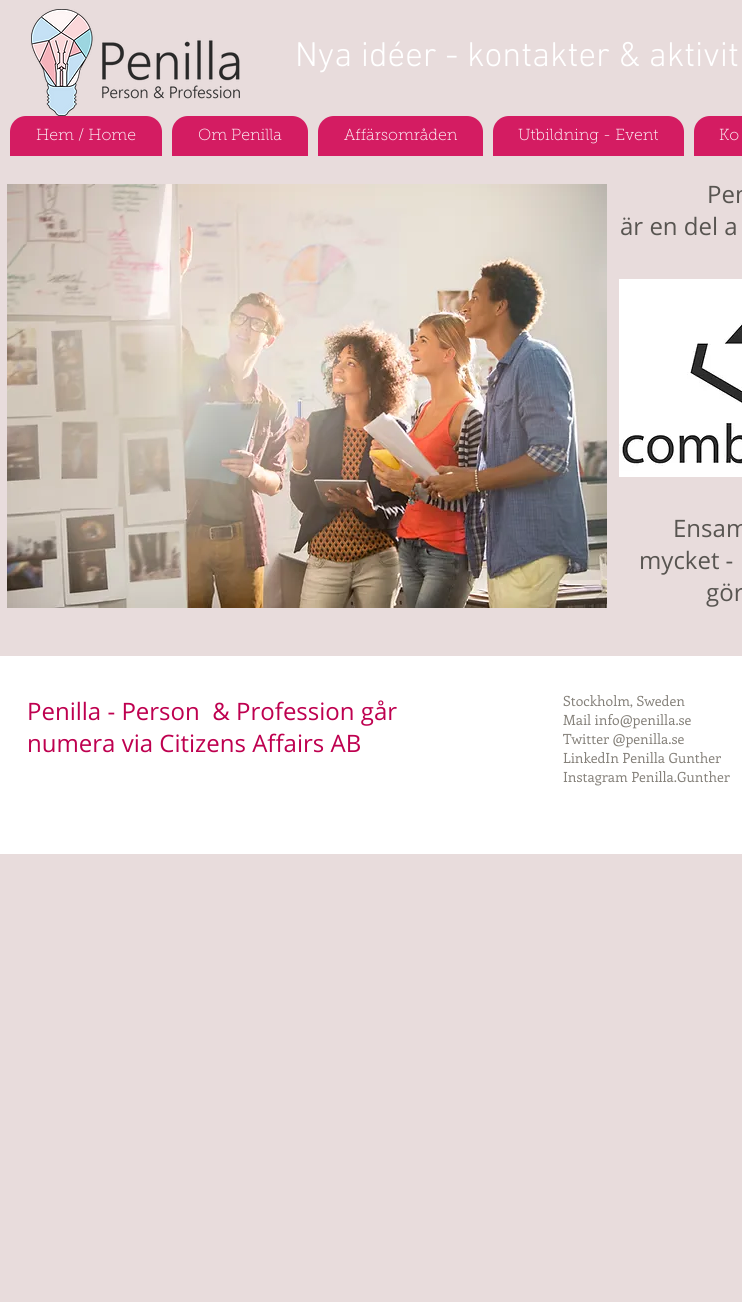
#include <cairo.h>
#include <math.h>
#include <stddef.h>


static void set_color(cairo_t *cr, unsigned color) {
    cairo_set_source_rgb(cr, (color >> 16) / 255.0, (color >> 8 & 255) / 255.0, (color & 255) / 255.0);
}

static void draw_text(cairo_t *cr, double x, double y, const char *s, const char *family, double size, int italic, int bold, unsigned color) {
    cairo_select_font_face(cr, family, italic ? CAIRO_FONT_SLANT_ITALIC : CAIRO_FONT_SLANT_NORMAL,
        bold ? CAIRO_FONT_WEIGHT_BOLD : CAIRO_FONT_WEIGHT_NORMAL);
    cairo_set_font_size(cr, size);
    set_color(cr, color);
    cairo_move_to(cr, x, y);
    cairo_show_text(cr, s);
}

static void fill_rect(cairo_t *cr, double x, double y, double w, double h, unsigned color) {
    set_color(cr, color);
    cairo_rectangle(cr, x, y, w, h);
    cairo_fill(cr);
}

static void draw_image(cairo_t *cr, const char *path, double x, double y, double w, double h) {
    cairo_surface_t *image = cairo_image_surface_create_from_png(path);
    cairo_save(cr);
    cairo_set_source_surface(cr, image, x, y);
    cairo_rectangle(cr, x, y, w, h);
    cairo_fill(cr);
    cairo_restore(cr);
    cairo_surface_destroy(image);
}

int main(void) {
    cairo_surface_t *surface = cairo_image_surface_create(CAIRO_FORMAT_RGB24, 742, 1302);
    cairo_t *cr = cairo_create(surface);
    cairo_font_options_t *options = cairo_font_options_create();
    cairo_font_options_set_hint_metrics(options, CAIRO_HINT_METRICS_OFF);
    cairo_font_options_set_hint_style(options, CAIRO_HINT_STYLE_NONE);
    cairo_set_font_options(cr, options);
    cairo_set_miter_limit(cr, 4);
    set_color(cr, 0xE8DCDC);
    cairo_paint(cr);
    draw_image(cr, "assets/img1.png", 31, 9, 209, 107);
    draw_text(cr, 295, 66, "Nya idéer - kontakter & aktivit", "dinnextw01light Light", 35, 0, 0, 0xFFFFFF);
    set_color(cr, 0xD41C62);
    cairo_new_path(cr);
    cairo_move_to(cr, 26, 116);
    cairo_line_to(cr, 146, 116);
    cairo_curve_to(cr, 155, 116, 162, 123, 162, 132);
    cairo_line_to(cr, 162, 156);
    cairo_line_to(cr, 10, 156);
    cairo_line_to(cr, 10, 132);
    cairo_curve_to(cr, 10, 123, 17, 116, 26, 116);
    cairo_close_path(cr);
    cairo_fill(cr);
    draw_text(cr, 36, 140, "Hem / Home", "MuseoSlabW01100 Thin", 16, 0, 0, 0xFFFFFF);
    set_color(cr, 0xD41C62);
    cairo_new_path(cr);
    cairo_move_to(cr, 188, 116);
    cairo_line_to(cr, 292, 116);
    cairo_curve_to(cr, 301, 116, 308, 123, 308, 132);
    cairo_line_to(cr, 308, 156);
    cairo_line_to(cr, 172, 156);
    cairo_line_to(cr, 172, 132);
    cairo_curve_to(cr, 172, 123, 179, 116, 188, 116);
    cairo_close_path(cr);
    cairo_fill(cr);
    draw_text(cr, 198, 140, "Om Penilla", "MuseoSlabW01100 Thin", 16, 0, 0, 0xFFFFFF);
    set_color(cr, 0xD41C62);
    cairo_new_path(cr);
    cairo_move_to(cr, 334, 116);
    cairo_line_to(cr, 467, 116);
    cairo_curve_to(cr, 476, 116, 483, 123, 483, 132);
    cairo_line_to(cr, 483, 156);
    cairo_line_to(cr, 318, 156);
    cairo_line_to(cr, 318, 132);
    cairo_curve_to(cr, 318, 123, 325, 116, 334, 116);
    cairo_close_path(cr);
    cairo_fill(cr);
    draw_text(cr, 344, 140, "Affärsområden", "MuseoSlabW01100 Thin", 16, 0, 0, 0xFFFFFF);
    set_color(cr, 0xD41C62);
    cairo_new_path(cr);
    cairo_move_to(cr, 509, 116);
    cairo_line_to(cr, 668, 116);
    cairo_curve_to(cr, 677, 116, 684, 123, 684, 132);
    cairo_line_to(cr, 684, 156);
    cairo_line_to(cr, 493, 156);
    cairo_line_to(cr, 493, 132);
    cairo_curve_to(cr, 493, 123, 500, 116, 509, 116);
    cairo_close_path(cr);
    cairo_fill(cr);
    draw_text(cr, 518, 140, "Utbildning - Event", "MuseoSlabW01100 Thin", 16, 0, 0, 0xFFFFFF);
    set_color(cr, 0xD41C62);
    cairo_new_path(cr);
    cairo_move_to(cr, 710, 116);
    cairo_line_to(cr, 742, 116);
    cairo_curve_to(cr, 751, 116, 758, 123, 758, 132);
    cairo_line_to(cr, 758, 156);
    cairo_line_to(cr, 694, 156);
    cairo_line_to(cr, 694, 132);
    cairo_curve_to(cr, 694, 123, 701, 116, 710, 116);
    cairo_close_path(cr);
    cairo_fill(cr);
    draw_text(cr, 719, 140, "Ko", "MuseoSlabW01100 Thin", 16, 0, 0, 0xFFFFFF);
    draw_image(cr, "assets/img2.png", 7, 184, 600, 424);
    draw_text(cr, 707, 203, "Pen", "Open Sans", 24, 0, 0, 0x585551);
    draw_text(cr, 620, 235, "är en del a", "Open Sans", 24, 0, 0, 0x585551);
    draw_image(cr, "assets/img3.png", 619, 279, 123, 198);
    draw_text(cr, 673, 537, "Ensam", "Open Sans", 24, 0, 0, 0x585551);
    draw_text(cr, 639, 569, "mycket -", "Open Sans", 24, 0, 0, 0x585551);
    draw_text(cr, 706, 601, "gör", "Open Sans", 24, 0, 0, 0x585551);
    fill_rect(cr, 0, 656, 742, 198, 0xFFFFFF);
    draw_text(cr, 27, 720, "Penilla - Person  & Profession går", "Open Sans", 24, 0, 0, 0xBE004F);
    draw_text(cr, 27, 752, "numera via Citizens Affairs AB", "Open Sans", 24, 0, 0, 0xBE004F);
    draw_text(cr, 563, 706, "Stockholm, Sweden", "Enriqueta", 14, 0, 0, 0x848079);
    draw_text(cr, 563, 725, "Mail info@penilla.se", "Enriqueta", 14, 0, 0, 0x848079);
    draw_text(cr, 563, 744, "Twitter @penilla.se", "Enriqueta", 14, 0, 0, 0x848079);
    draw_text(cr, 563, 763, "LinkedIn Penilla Gunther", "Enriqueta", 14, 0, 0, 0x848079);
    draw_text(cr, 563, 782, "Instagram Penilla.Gunther", "Enriqueta", 14, 0, 0, 0x848079);
    cairo_surface_write_to_png(surface, "output.png");
    cairo_font_options_destroy(options);
    cairo_destroy(cr);
    cairo_surface_destroy(surface);
    return 0;
}
